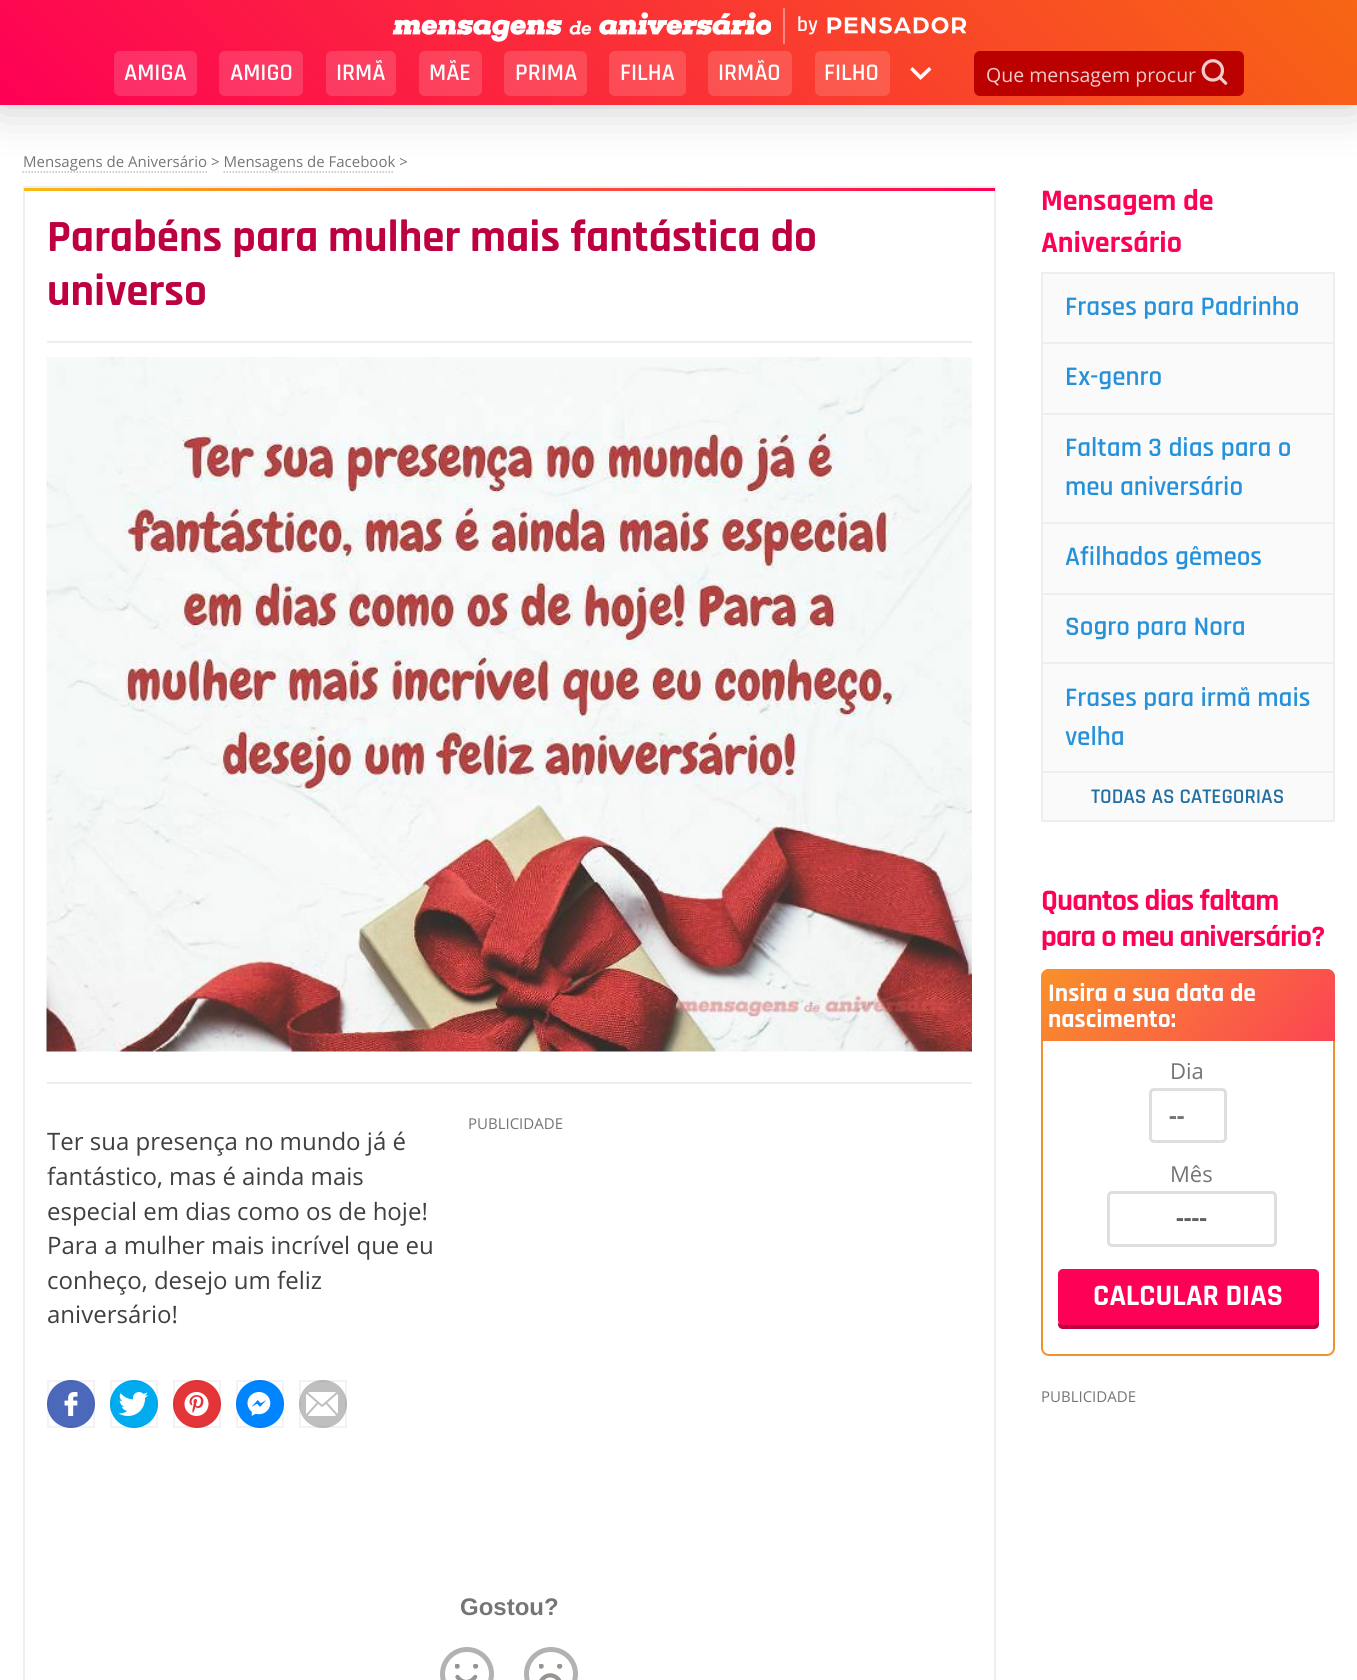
#include <cairo.h>
#include <math.h>
#include <stddef.h>


static void set_color(cairo_t *cr, unsigned color) {
    cairo_set_source_rgb(cr, (color >> 16) / 255.0, (color >> 8 & 255) / 255.0, (color & 255) / 255.0);
}

static void draw_text(cairo_t *cr, double x, double y, const char *s, const char *family, double size, int italic, int bold, unsigned color) {
    cairo_select_font_face(cr, family, italic ? CAIRO_FONT_SLANT_ITALIC : CAIRO_FONT_SLANT_NORMAL,
        bold ? CAIRO_FONT_WEIGHT_BOLD : CAIRO_FONT_WEIGHT_NORMAL);
    cairo_set_font_size(cr, size);
    set_color(cr, color);
    cairo_move_to(cr, x, y);
    cairo_show_text(cr, s);
}

static void draw_spaced(cairo_t *cr, double x, double y, const char *s, double letter, double word) {
    cairo_move_to(cr, x, y);
    while (*s) {
        char ch[5] = {0};
        int n = 0;
        do ch[n++] = *s++; while ((*s & 0xC0) == 0x80);
        cairo_show_text(cr, ch);
        cairo_rel_move_to(cr, letter + word * (*ch == ' '), 0);
    }
}

static void fill_rect(cairo_t *cr, double x, double y, double w, double h, unsigned color) {
    set_color(cr, color);
    cairo_rectangle(cr, x, y, w, h);
    cairo_fill(cr);
}

static void rounded_rect(cairo_t *cr, double x, double y, double w, double h, double r) {
    cairo_new_sub_path(cr);
    cairo_arc(cr, x + w - r, y + h - r, r, 0, M_PI / 2);
    cairo_arc(cr, x + r, y + h - r, r, M_PI / 2, M_PI);
    cairo_arc(cr, x + r, y + r, r, M_PI, 1.5 * M_PI);
    cairo_arc(cr, x + w - r, y + r, r, 1.5 * M_PI, 2 * M_PI);
    cairo_close_path(cr);
}

static void draw_shadow(cairo_t *cr, double x, double y, double w, double h, double r, double blur, double alpha) {
    cairo_push_group_with_content(cr, CAIRO_CONTENT_ALPHA);
    cairo_set_operator(cr, CAIRO_OPERATOR_SOURCE);
    for (int i = 15; i >= -15 && fmin(w, h) + blur * i / 3 > 0; i -= 2) {
        double e = blur * i / 6;
        cairo_set_source_rgba(cr, 0, 0, 0, alpha * erfc((i - 1) / 8.5) / 2);
        rounded_rect(cr, x - e, y - e, w + 2 * e, h + 2 * e, fmax(0, fmin(r + e + blur * .6, fmin(w, h) / 2 + e)));
        cairo_fill(cr);
    }
    cairo_pattern_t *soft = cairo_pop_group(cr);
    cairo_mask(cr, soft);
    cairo_pattern_destroy(soft);
}

static void draw_image(cairo_t *cr, const char *path, double x, double y, double w, double h) {
    cairo_surface_t *image = cairo_image_surface_create_from_png(path);
    cairo_save(cr);
    cairo_set_source_surface(cr, image, x, y);
    cairo_rectangle(cr, x, y, w, h);
    cairo_fill(cr);
    cairo_restore(cr);
    cairo_surface_destroy(image);
}

int main(void) {
    cairo_surface_t *surface = cairo_image_surface_create(CAIRO_FORMAT_RGB24, 1357, 1680);
    cairo_t *cr = cairo_create(surface);
    cairo_font_options_t *options = cairo_font_options_create();
    cairo_font_options_set_hint_metrics(options, CAIRO_HINT_METRICS_OFF);
    cairo_font_options_set_hint_style(options, CAIRO_HINT_STYLE_NONE);
    cairo_set_font_options(cr, options);
    cairo_set_miter_limit(cr, 4);
    cairo_pattern_t *gradient;
    set_color(cr, 0xFFFFFF);
    cairo_paint(cr);
    cairo_new_path(cr);
    cairo_move_to(cr, 22.5, 172);
    cairo_line_to(cr, 207, 172);
    set_color(cr, 0xBFBFBF);
    cairo_set_line_width(cr, 1.5);
    cairo_set_dash(cr, (double[]){1.5, 1.5}, 2, 0);
    cairo_stroke(cr);
    cairo_new_path(cr);
    cairo_move_to(cr, 223.5, 172);
    cairo_line_to(cr, 394.5, 172);
    cairo_stroke(cr);
    set_color(cr, 0x000000);
    draw_shadow(cr, 0, 0, 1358, 105, 0, 24, 0.23);
    gradient = cairo_pattern_create_linear(313, 418, 1044, -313);
    cairo_pattern_add_color_stop_rgba(gradient, 0, 0.996, 0, 0.337, 1);
    cairo_pattern_add_color_stop_rgba(gradient, 1, 0.969, 0.4, 0.075, 1);
    cairo_set_source(cr, gradient);
    cairo_pattern_destroy(gradient);
    cairo_rectangle(cr, 0, 0, 1357, 105);
    cairo_fill(cr);
    draw_image(cr, "assets/img1.png", 392, 12, 379, 30);
    fill_rect(cr, 783, 8, 2, 36, 0xFC8A82);
    draw_text(cr, 797, 31, "by", "Rajdhani SemiBold", 21, 0, 0, 0xFFFFFF);
    draw_image(cr, "assets/img2.png", 827, 17, 139, 17);
    cairo_set_source_rgba(cr, 1, 1, 1, 0.15);
    rounded_rect(cr, 114, 51, 83, 45, 6);
    cairo_fill(cr);
    draw_text(cr, 124, 80, "AMIGA", "Rajdhani SemiBold", 24, 0, 0, 0xFFFFFF);
    cairo_set_source_rgba(cr, 1, 1, 1, 0.15);
    rounded_rect(cr, 219, 51, 84, 45, 6);
    cairo_fill(cr);
    draw_text(cr, 230, 80, "AMIGO", "Rajdhani SemiBold", 24, 0, 0, 0xFFFFFF);
    cairo_set_source_rgba(cr, 1, 1, 1, 0.15);
    rounded_rect(cr, 326, 51, 70, 45, 6);
    cairo_fill(cr);
    draw_text(cr, 336, 80, "IRMÃ", "Rajdhani SemiBold", 24, 0, 0, 0xFFFFFF);
    cairo_set_source_rgba(cr, 1, 1, 1, 0.15);
    rounded_rect(cr, 419, 51, 63, 45, 6);
    cairo_fill(cr);
    draw_text(cr, 429, 80, "MÃE", "Rajdhani SemiBold", 24, 0, 0, 0xFFFFFF);
    cairo_set_source_rgba(cr, 1, 1, 1, 0.15);
    rounded_rect(cr, 504, 51, 83, 45, 6);
    cairo_fill(cr);
    draw_text(cr, 515, 80, "PRIMA", "Rajdhani SemiBold", 24, 0, 0, 0xFFFFFF);
    cairo_set_source_rgba(cr, 1, 1, 1, 0.15);
    rounded_rect(cr, 609, 51, 77, 45, 6);
    cairo_fill(cr);
    draw_text(cr, 620, 80, "FILHA", "Rajdhani SemiBold", 24, 0, 0, 0xFFFFFF);
    cairo_set_source_rgba(cr, 1, 1, 1, 0.15);
    rounded_rect(cr, 708, 51, 84, 45, 6);
    cairo_fill(cr);
    draw_text(cr, 718, 80, "IRMÃO", "Rajdhani SemiBold", 24, 0, 0, 0xFFFFFF);
    cairo_set_source_rgba(cr, 1, 1, 1, 0.15);
    rounded_rect(cr, 815, 51, 75, 45, 6);
    cairo_fill(cr);
    draw_text(cr, 824, 80, "FILHO", "Rajdhani SemiBold", 24, 0, 0, 0xFFFFFF);
    cairo_new_path(cr);
    cairo_move_to(cr, 931.5, 69.5);
    cairo_line_to(cr, 929, 67);
    cairo_line_to(cr, 920.5, 75);
    cairo_line_to(cr, 912.5, 67);
    cairo_line_to(cr, 910, 69.5);
    cairo_line_to(cr, 920.5, 80);
    cairo_close_path(cr);
    cairo_fill(cr);
    set_color(cr, 0xBB0000);
    rounded_rect(cr, 974, 51, 270, 45, 6);
    cairo_fill(cr);
    draw_text(cr, 986, 82, "Que mensagem procur", "Open Sans", 19.5, 0, 0, 0xF1CCCC);
    draw_image(cr, "assets/img3.png", 1201, 59, 27, 26);
    draw_text(cr, 23, 167, "Mensagens de Aniversário > Mensagens de Facebook >", "Open Sans", 15, 0, 0, 0x757575);
    cairo_rectangle(cr, 24, 187, 971, 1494);
    set_color(cr, 0xEEEEEE);
    cairo_set_line_width(cr, 2);
    cairo_set_dash(cr, NULL, 0, 0);
    cairo_stroke(cr);
    gradient = cairo_pattern_create_linear(24, 189, 995, 189);
    cairo_pattern_add_color_stop_rgba(gradient, 0, 0.969, 0.733, 0.075, 1);
    cairo_pattern_add_color_stop_rgba(gradient, 1, 0.996, 0, 0.337, 1);
    cairo_set_source(cr, gradient);
    cairo_pattern_destroy(gradient);
    cairo_rectangle(cr, 24, 188, 971, 3);
    cairo_fill(cr);
    fill_rect(cr, 47, 341, 925, 2, 0xEEEEEE);
    draw_text(cr, 47, 251, "Parabéns para mulher mais fantástica do", "Rajdhani", 45, 0, 1, 0xBC0040);
    draw_text(cr, 47, 305, "universo", "Rajdhani", 45, 0, 1, 0xBC0040);
    draw_image(cr, "assets/img4.png", 46, 357, 926, 695);
    fill_rect(cr, 47, 1082, 925, 2, 0xEEEEEE);
    draw_text(cr, 468, 1129, "PUBLICIDADE", "Open Sans", 15, 0, 0, 0x757575);
    draw_text(cr, 47, 1150, "Ter sua presença no mundo já é", "Open Sans", 24, 0, 0, 0x404040);
    draw_text(cr, 47, 1185, "fantástico, mas é ainda mais", "Open Sans", 24, 0, 0, 0x404040);
    draw_text(cr, 47, 1220, "especial em dias como os de hoje!", "Open Sans", 24, 0, 0, 0x404040);
    draw_text(cr, 47, 1254, "Para a mulher mais incrível que eu", "Open Sans", 24, 0, 0, 0x404040);
    draw_text(cr, 47, 1289, "conheço, desejo um feliz", "Open Sans", 24, 0, 0, 0x404040);
    draw_text(cr, 47, 1323, "aniversário!", "Open Sans", 24, 0, 0, 0x404040);
    set_color(cr, 0x4B68BA);
    cairo_new_path(cr);
    cairo_arc(cr, 71, 1404, 24, 0, 2 * M_PI);
    cairo_fill(cr);
    cairo_rectangle(cr, 48, 1381, 46, 46);
    cairo_set_source_rgba(cr, 0, 0, 0, 0.05);
    cairo_stroke(cr);
    draw_image(cr, "assets/img5.png", 64, 1392, 14, 24);
    set_color(cr, 0x00ABF0);
    cairo_arc(cr, 134, 1404, 24, 0, 2 * M_PI);
    cairo_fill(cr);
    cairo_rectangle(cr, 111, 1381, 46, 46);
    cairo_set_source_rgba(cr, 0, 0, 0, 0.05);
    cairo_stroke(cr);
    draw_image(cr, "assets/img6.png", 118, 1392, 30, 24);
    set_color(cr, 0xE33538);
    cairo_arc(cr, 197, 1404, 24, 0, 2 * M_PI);
    cairo_fill(cr);
    cairo_rectangle(cr, 174, 1381, 46, 46);
    cairo_set_source_rgba(cr, 0, 0, 0, 0.05);
    cairo_stroke(cr);
    draw_image(cr, "assets/img7.png", 184, 1392, 25, 24);
    set_color(cr, 0x0084FF);
    cairo_arc(cr, 260, 1404, 24, 0, 2 * M_PI);
    cairo_fill(cr);
    cairo_rectangle(cr, 237, 1381, 46, 46);
    cairo_set_source_rgba(cr, 0, 0, 0, 0.05);
    cairo_stroke(cr);
    draw_image(cr, "assets/img8.png", 247, 1392, 24, 24);
    set_color(cr, 0xBFBFBF);
    cairo_arc(cr, 323, 1404, 24, 0, 2 * M_PI);
    cairo_fill(cr);
    cairo_rectangle(cr, 300, 1381, 46, 46);
    cairo_set_source_rgba(cr, 0, 0, 0, 0.05);
    cairo_stroke(cr);
    draw_image(cr, "assets/img9.png", 306, 1392, 32, 24);
    draw_text(cr, 460, 1615, "Gostou?", "Liberation Sans", 24, 0, 1, 0x757575);
    draw_image(cr, "assets/img10.png", 455, 1664, 24, 16);
    cairo_arc(cr, 467, 1674, 24.5, 0, 2 * M_PI);
    set_color(cr, 0xB2B2B2);
    cairo_set_line_width(cr, 5);
    cairo_stroke(cr);
    draw_image(cr, "assets/img11.png", 539, 1664, 24, 16);
    cairo_arc(cr, 551, 1674, 24.5, 0, 2 * M_PI);
    cairo_stroke(cr);
    draw_text(cr, 1041, 210, "Mensagem de", "Rajdhani", 30, 0, 1, 0xFE0056);
    draw_text(cr, 1041, 252, "Aniversário", "Rajdhani", 30, 0, 1, 0xFE0056);
    set_color(cr, 0xFAFAFA);
    cairo_rectangle(cr, 1042, 273, 292, 548);
    cairo_fill_preserve(cr);
    set_color(cr, 0xEEEEEE);
    cairo_set_line_width(cr, 2);
    cairo_stroke(cr);
    fill_rect(cr, 1043, 342, 291, 2, 0xEEEEEE);
    draw_text(cr, 1065, 315, "Frases para Padrinho", "Rajdhani SemiBold", 27, 0, 0, 0x2491DA);
    fill_rect(cr, 1043, 413, 291, 2, 0xEEEEEE);
    draw_text(cr, 1065, 385, "Ex-genro", "Rajdhani SemiBold", 27, 0, 0, 0x2491DA);
    fill_rect(cr, 1043, 522, 291, 2, 0xEEEEEE);
    draw_text(cr, 1065, 456, "Faltam 3 dias para o", "Rajdhani SemiBold", 27, 0, 0, 0x2491DA);
    draw_text(cr, 1065, 495, "meu aniversário", "Rajdhani SemiBold", 27, 0, 0, 0x2491DA);
    fill_rect(cr, 1043, 593, 291, 2, 0xEEEEEE);
    draw_text(cr, 1065, 565, "Afilhados gêmeos", "Rajdhani SemiBold", 27, 0, 0, 0x2491DA);
    fill_rect(cr, 1043, 662, 291, 2, 0xEEEEEE);
    draw_text(cr, 1065, 635, "Sogro para Nora", "Rajdhani SemiBold", 27, 0, 0, 0x2491DA);
    fill_rect(cr, 1043, 771, 291, 2, 0xEEEEEE);
    draw_text(cr, 1065, 706, "Frases para irmã mais", "Rajdhani SemiBold", 27, 0, 0, 0x2491DA);
    draw_text(cr, 1065, 745, "velha", "Rajdhani SemiBold", 27, 0, 0, 0x2491DA);
    draw_text(cr, 1091, 803, "TODAS AS CATEGORIAS", "Rajdhani SemiBold", 21, 0, 0, 0x236FA2);
    cairo_select_font_face(cr, "Rajdhani", CAIRO_FONT_SLANT_NORMAL, CAIRO_FONT_WEIGHT_BOLD);
    cairo_set_font_size(cr, 30);
    set_color(cr, 0xFE0056);
    draw_spaced(cr, 1041, 910, "Quantos dias faltam", -0.75, 0);
    draw_spaced(cr, 1041, 946, "para o meu aniversário?", -0.75, 0);
    rounded_rect(cr, 1042, 970, 292, 385, 7);
    set_color(cr, 0xF19231);
    cairo_stroke(cr);
    gradient = cairo_pattern_create_linear(1084, 918, 1292, 1092);
    cairo_pattern_add_color_stop_rgba(gradient, 0, 0.976, 0.565, 0.161, 1);
    cairo_pattern_add_color_stop_rgba(gradient, 1, 0.984, 0.267, 0.329, 1);
    cairo_set_source(cr, gradient);
    cairo_pattern_destroy(gradient);
    cairo_new_path(cr);
    cairo_move_to(cr, 1049, 969);
    cairo_line_to(cr, 1327, 969);
    cairo_curve_to(cr, 1331.5, 969, 1335, 972.5, 1335, 977);
    cairo_line_to(cr, 1335, 1041);
    cairo_line_to(cr, 1041, 1041);
    cairo_line_to(cr, 1041, 977);
    cairo_curve_to(cr, 1041, 972.5, 1044.5, 969, 1049, 969);
    cairo_close_path(cr);
    cairo_fill(cr);
    draw_text(cr, 1048, 1001, "Insira a sua data de", "Rajdhani", 25.5, 0, 1, 0xFFFFFF);
    draw_text(cr, 1048, 1027, "nascimento:", "Rajdhani", 25.5, 0, 1, 0xFFFFFF);
    draw_text(cr, 1170, 1079, "Dia", "Open Sans", 22, 0, 0, 0x757575);
    rounded_rect(cr, 1150.5, 1089.5, 75, 52, 3.5);
    set_color(cr, 0xDEDEDE);
    cairo_set_line_width(cr, 3);
    cairo_stroke(cr);
    draw_text(cr, 1169, 1124, "--", "Open Sans", 24, 0, 1, 0x757575);
    draw_text(cr, 1170, 1182, "Mês", "Open Sans", 22, 0, 0, 0x757575);
    rounded_rect(cr, 1108.5, 1192.5, 167, 53, 3.5);
    set_color(cr, 0xDEDEDE);
    cairo_stroke(cr);
    draw_text(cr, 1176, 1226, "----", "Open Sans", 24, 0, 1, 0x616161);
    set_color(cr, 0xBC0040);
    cairo_new_path(cr);
    cairo_move_to(cr, 1058, 1322);
    cairo_line_to(cr, 1058, 1324);
    cairo_curve_to(cr, 1058, 1327, 1060, 1329, 1063, 1329);
    cairo_line_to(cr, 1314, 1329);
    cairo_curve_to(cr, 1317, 1329, 1319, 1327, 1319, 1324);
    cairo_line_to(cr, 1319, 1279);
    cairo_line_to(cr, 1318, 1277);
    cairo_line_to(cr, 1318, 1320);
    cairo_curve_to(cr, 1318, 1322, 1316, 1324, 1314, 1324);
    cairo_line_to(cr, 1062, 1324);
    cairo_curve_to(cr, 1060, 1324, 1059, 1324, 1058, 1322);
    cairo_close_path(cr);
    cairo_fill(cr);
    set_color(cr, 0xFE0056);
    rounded_rect(cr, 1058, 1269, 261, 56, 5);
    cairo_fill(cr);
    draw_text(cr, 1093, 1305, "CALCULAR DIAS", "Rajdhani", 30, 0, 1, 0xFFFFFF);
    draw_text(cr, 1041, 1402, "PUBLICIDADE", "Open Sans", 15, 0, 0, 0x757575);
    cairo_surface_write_to_png(surface, "output.png");
    cairo_font_options_destroy(options);
    cairo_destroy(cr);
    cairo_surface_destroy(surface);
    return 0;
}
